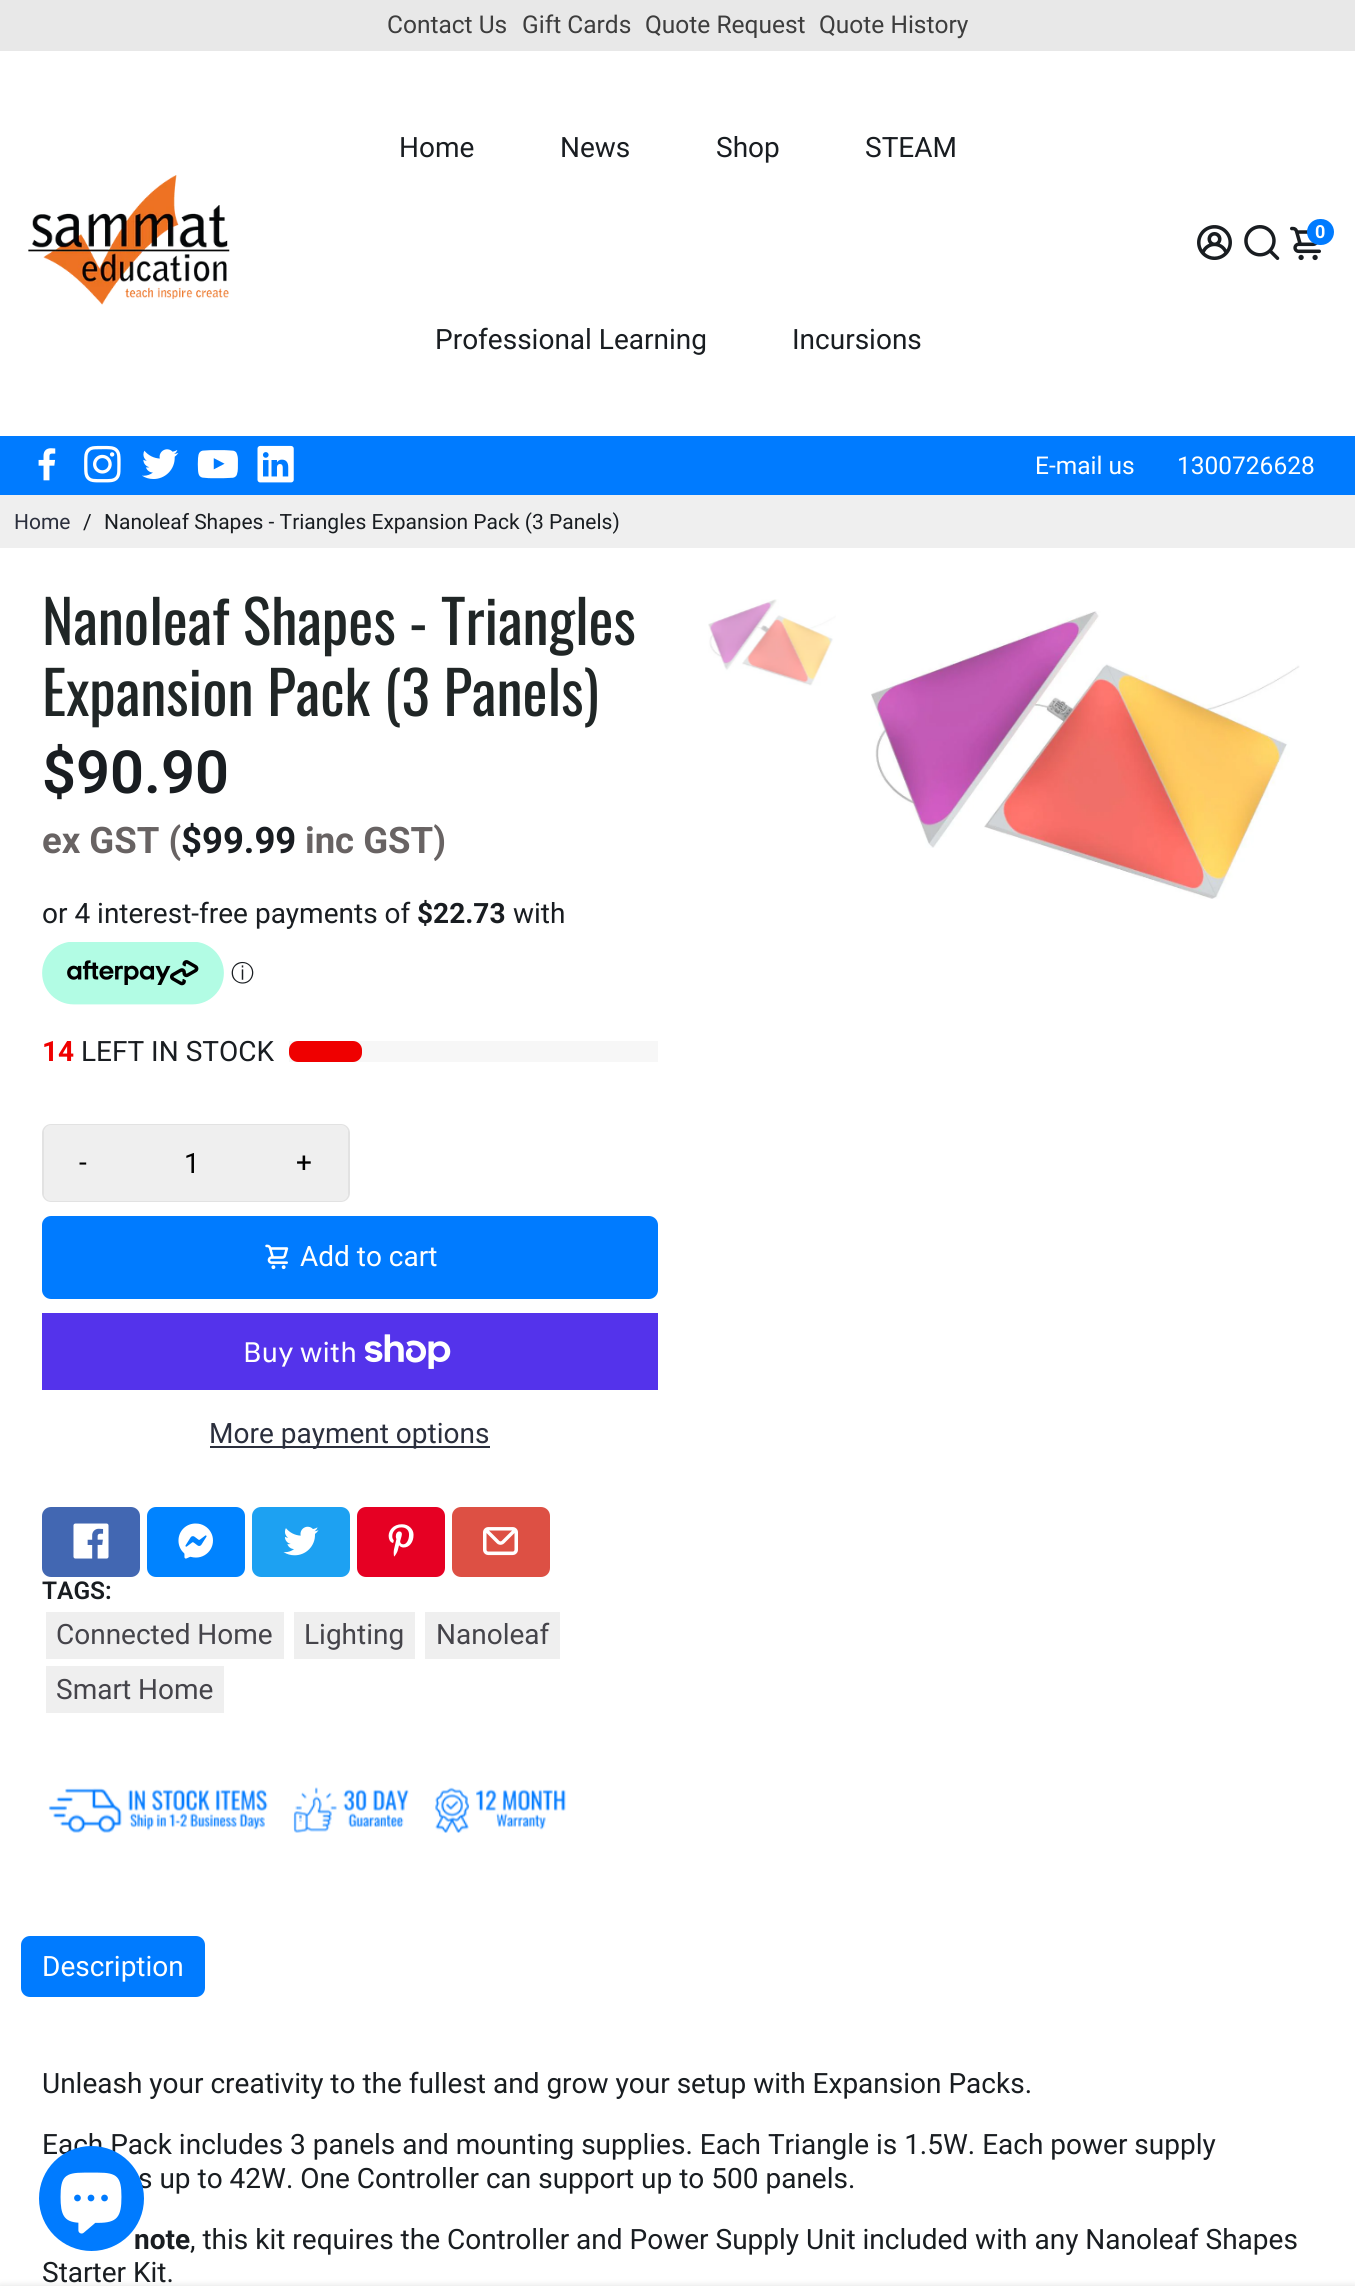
#include <cairo.h>
#include <math.h>
#include <stddef.h>


static void set_color(cairo_t *cr, unsigned color) {
    cairo_set_source_rgb(cr, (color >> 16) / 255.0, (color >> 8 & 255) / 255.0, (color & 255) / 255.0);
}

static void draw_text(cairo_t *cr, double x, double y, const char *s, const char *family, double size, int italic, int bold, unsigned color) {
    cairo_select_font_face(cr, family, italic ? CAIRO_FONT_SLANT_ITALIC : CAIRO_FONT_SLANT_NORMAL,
        bold ? CAIRO_FONT_WEIGHT_BOLD : CAIRO_FONT_WEIGHT_NORMAL);
    cairo_set_font_size(cr, size);
    set_color(cr, color);
    cairo_move_to(cr, x, y);
    cairo_show_text(cr, s);
}

static void fill_rect(cairo_t *cr, double x, double y, double w, double h, unsigned color) {
    set_color(cr, color);
    cairo_rectangle(cr, x, y, w, h);
    cairo_fill(cr);
}

static void rounded_rect(cairo_t *cr, double x, double y, double w, double h, double r) {
    cairo_new_sub_path(cr);
    cairo_arc(cr, x + w - r, y + h - r, r, 0, M_PI / 2);
    cairo_arc(cr, x + r, y + h - r, r, M_PI / 2, M_PI);
    cairo_arc(cr, x + r, y + r, r, M_PI, 1.5 * M_PI);
    cairo_arc(cr, x + w - r, y + r, r, 1.5 * M_PI, 2 * M_PI);
    cairo_close_path(cr);
}

static void draw_shadow(cairo_t *cr, double x, double y, double w, double h, double r, double blur, double alpha) {
    cairo_push_group_with_content(cr, CAIRO_CONTENT_ALPHA);
    cairo_set_operator(cr, CAIRO_OPERATOR_SOURCE);
    for (int i = 15; i >= -15 && fmin(w, h) + blur * i / 3 > 0; i -= 2) {
        double e = blur * i / 6;
        cairo_set_source_rgba(cr, 0, 0, 0, alpha * erfc((i - 1) / 8.5) / 2);
        rounded_rect(cr, x - e, y - e, w + 2 * e, h + 2 * e, fmax(0, fmin(r + e + blur * .6, fmin(w, h) / 2 + e)));
        cairo_fill(cr);
    }
    cairo_pattern_t *soft = cairo_pop_group(cr);
    cairo_mask(cr, soft);
    cairo_pattern_destroy(soft);
}

static void draw_image(cairo_t *cr, const char *path, double x, double y, double w, double h) {
    cairo_surface_t *image = cairo_image_surface_create_from_png(path);
    cairo_save(cr);
    cairo_set_source_surface(cr, image, x, y);
    cairo_rectangle(cr, x, y, w, h);
    cairo_fill(cr);
    cairo_restore(cr);
    cairo_surface_destroy(image);
}

int main(void) {
    cairo_surface_t *surface = cairo_image_surface_create(CAIRO_FORMAT_RGB24, 1355, 2286);
    cairo_t *cr = cairo_create(surface);
    cairo_font_options_t *options = cairo_font_options_create();
    cairo_font_options_set_hint_metrics(options, CAIRO_HINT_METRICS_OFF);
    cairo_font_options_set_hint_style(options, CAIRO_HINT_STYLE_NONE);
    cairo_set_font_options(cr, options);
    cairo_set_miter_limit(cr, 4);
    set_color(cr, 0xFFFFFF);
    cairo_paint(cr);
    fill_rect(cr, 0, 0, 1355, 51, 0xE8E8E8);
    draw_text(cr, 387, 33, "Contact Us", "Roboto", 24.5, 0, 0, 0x3D3D3D);
    draw_text(cr, 522, 33, "Gift Cards", "Roboto", 24.5, 0, 0, 0x3D3D3D);
    draw_text(cr, 645, 33, "Quote Request", "Roboto", 24.5, 0, 0, 0x3D3D3D);
    draw_text(cr, 819, 33, "Quote History", "Roboto", 24.5, 0, 0, 0x3D3D3D);
    draw_image(cr, "assets/img1.png", 28, 175, 202, 130);
    draw_text(cr, 399, 157, "Home", "Roboto", 28, 0, 0, 0x191D21);
    draw_text(cr, 560, 157, "News", "Roboto", 28, 0, 0, 0x191D21);
    draw_text(cr, 716, 157, "Shop", "Roboto", 28, 0, 0, 0x191D21);
    draw_text(cr, 865, 157, "STEAM", "Roboto", 28, 0, 0, 0x191D21);
    draw_text(cr, 435, 349, "Professional Learning", "Roboto", 28, 0, 0, 0x191D21);
    draw_text(cr, 792, 349, "Incursions", "Roboto", 28, 0, 0, 0x191D21);
    draw_image(cr, "assets/img2.png", 1197, 225, 35, 35);
    draw_image(cr, "assets/img3.png", 1244, 225, 36, 35);
    draw_image(cr, "assets/img4.png", 1290, 226, 31, 35);
    set_color(cr, 0x007BFF);
    rounded_rect(cr, 1307, 219, 27, 26, 13);
    cairo_fill(cr);
    draw_text(cr, 1315, 238, "0", "Roboto", 18, 0, 1, 0xFFFFFF);
    fill_rect(cr, 0, 436, 1355, 59, 0x007BFF);
    draw_image(cr, "assets/img5.png", 38, 448, 18, 33);
    draw_image(cr, "assets/img6.png", 84, 445, 37, 38);
    draw_image(cr, "assets/img7.png", 142, 449, 37, 30);
    draw_image(cr, "assets/img8.png", 197, 450, 41, 29);
    draw_image(cr, "assets/img9.png", 257, 445, 37, 38);
    draw_text(cr, 1035, 474, "E-mail us", "Roboto", 24.5, 0, 0, 0xFFFFFF);
    draw_text(cr, 1177, 474, "1300726628", "Roboto", 24.5, 0, 0, 0xFFFFFF);
    fill_rect(cr, 0, 495, 1355, 53, 0xEFEFEF);
    draw_text(cr, 14, 529, "Home", "Roboto", 21, 0, 0, 0x2B2F3D);
    draw_text(cr, 83, 529, "/", "Roboto", 21, 0, 0, 0x191D21);
    draw_text(cr, 104, 529, "Nanoleaf Shapes - Triangles Expansion Pack (3 Panels)", "Roboto", 21, 0, 0, 0x191D21);
    draw_text(cr, 42, 645, "Nanoleaf Shapes - Triangles", "Oswald", 59.5, 0, 0, 0x202626);
    draw_text(cr, 42, 716, "Expansion Pack (3 Panels)", "Oswald", 59.5, 0, 0, 0x202626);
    draw_text(cr, 42, 793, "$90.90", "Roboto SemiBold", 59.5, 0, 0, 0x191D21);
    draw_text(cr, 42, 853, "ex GST (", "Roboto", 36.5, 0, 1, 0x686363);
    draw_text(cr, 181, 853, "$99.99", "Roboto", 36.5, 0, 1, 0x191D21);
    draw_text(cr, 305, 853, "inc GST)", "Roboto", 36.5, 0, 1, 0x686363);
    draw_text(cr, 42, 923, "or 4 interest-free payments of", "Roboto", 28, 0, 0, 0x191D21);
    draw_text(cr, 417, 923, "$22.73", "Roboto", 28, 0, 1, 0x191D21);
    draw_text(cr, 513, 923, "with", "Roboto", 28, 0, 0, 0x191D21);
    draw_image(cr, "assets/img10.png", 42, 942, 182, 63);
    draw_text(cr, 231, 981, "ⓘ", "WenQuanYi Zen Hei Medium", 23, 0, 0, 0x191D21);
    draw_text(cr, 42, 1061, "14", "Roboto", 28, 0, 1, 0xEF0000);
    draw_text(cr, 81, 1061, "LEFT IN STOCK", "Roboto", 28, 0, 0, 0x191D21);
    fill_rect(cr, 289, 1041, 369, 21, 0xF7F7F7);
    set_color(cr, 0xEF0000);
    rounded_rect(cr, 289, 1041, 73, 21, 9);
    cairo_fill(cr);
    rounded_rect(cr, 43, 1125, 306, 76, 8);
    set_color(cr, 0xE2E2E2);
    cairo_stroke(cr);
    set_color(cr, 0xEFEFEF);
    cairo_new_path(cr);
    cairo_move_to(cr, 51, 1125);
    cairo_line_to(cr, 121, 1125);
    cairo_line_to(cr, 121, 1201);
    cairo_line_to(cr, 51, 1201);
    cairo_curve_to(cr, 47, 1201, 44, 1198, 44, 1194);
    cairo_line_to(cr, 44, 1132);
    cairo_curve_to(cr, 44, 1128, 47, 1125, 51, 1125);
    cairo_close_path(cr);
    cairo_fill(cr);
    draw_text(cr, 79, 1172, "-", "Roboto", 28, 0, 0, 0x000000);
    fill_rect(cr, 121, 1125, 140, 76, 0xEFEFEF);
    draw_text(cr, 184, 1173, "1", "Roboto", 28, 0, 0, 0x000000);
    set_color(cr, 0xEFEFEF);
    cairo_new_path(cr);
    cairo_move_to(cr, 261, 1125);
    cairo_line_to(cr, 341, 1125);
    cairo_curve_to(cr, 345, 1125, 348, 1128, 348, 1132);
    cairo_line_to(cr, 348, 1194);
    cairo_curve_to(cr, 348, 1198, 345, 1201, 341, 1201);
    cairo_line_to(cr, 261, 1201);
    cairo_close_path(cr);
    cairo_fill(cr);
    draw_text(cr, 296, 1172, "+", "Roboto", 28, 0, 0, 0x000000);
    set_color(cr, 0x007BFF);
    rounded_rect(cr, 42, 1216, 616, 83, 9);
    cairo_fill(cr);
    draw_image(cr, "assets/img11.png", 265, 1244, 24, 26);
    draw_text(cr, 300, 1266, "Add to cart", "Roboto", 28, 0, 0, 0xFFFFFF);
    fill_rect(cr, 42, 1313, 616, 77, 0x5433EB);
    draw_text(cr, 243, 1362, "Buy with", "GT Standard", 28, 0, 0, 0xFFFFFF);
    draw_image(cr, "assets/img12.png", 365, 1334, 86, 35);
    fill_rect(cr, 210, 1446, 280, 2, 0x2B2F3D);
    draw_text(cr, 209, 1443, "More payment options", "Roboto", 28, 0, 0, 0x2B2F3D);
    set_color(cr, 0x4267B2);
    rounded_rect(cr, 42, 1507, 98, 70, 9);
    cairo_fill(cr);
    draw_image(cr, "assets/img13.png", 73, 1523, 36, 36);
    set_color(cr, 0x0083FF);
    rounded_rect(cr, 147, 1507, 98, 70, 9);
    cairo_fill(cr);
    draw_image(cr, "assets/img14.png", 178, 1523, 35, 36);
    set_color(cr, 0x1DA1F2);
    rounded_rect(cr, 252, 1507, 98, 70, 9);
    cairo_fill(cr);
    draw_image(cr, "assets/img15.png", 283, 1526, 36, 30);
    set_color(cr, 0xE60023);
    rounded_rect(cr, 357, 1507, 88, 70, 9);
    cairo_fill(cr);
    draw_image(cr, "assets/img16.png", 388, 1524, 26, 33);
    set_color(cr, 0xDD5044);
    rounded_rect(cr, 452, 1507, 98, 70, 9);
    cairo_fill(cr);
    draw_image(cr, "assets/img17.png", 483, 1527, 35, 29);
    draw_text(cr, 42, 1599, "TAGS:", "Roboto SemiBold", 24.5, 0, 0, 0x191D21);
    fill_rect(cr, 46, 1612, 238, 47, 0xEFEFEF);
    draw_text(cr, 56, 1644, "Connected Home", "Roboto", 28, 0, 0, 0x45444A);
    fill_rect(cr, 294, 1612, 121, 47, 0xEFEFEF);
    draw_text(cr, 304, 1644, "Lighting", "Roboto", 28, 0, 0, 0x45444A);
    fill_rect(cr, 425, 1612, 135, 47, 0xEFEFEF);
    draw_text(cr, 436, 1644, "Nanoleaf", "Roboto", 28, 0, 0, 0x45444A);
    fill_rect(cr, 46, 1666, 178, 47, 0xEFEFEF);
    draw_text(cr, 56, 1699, "Smart Home", "Roboto", 28, 0, 0, 0x45444A);
    draw_image(cr, "assets/img18.png", 48, 1787, 518, 46);
    draw_image(cr, "assets/img19.png", 708, 599, 128, 87);
    draw_image(cr, "assets/img20.png", 871, 611, 429, 288);
    set_color(cr, 0x007BFF);
    rounded_rect(cr, 21, 1936, 184, 61, 9);
    cairo_fill(cr);
    draw_text(cr, 42, 1976, "Description", "Roboto", 28, 0, 0, 0xFFFFFF);
    draw_text(cr, 42, 2093, "Unleash your creativity to the fullest and grow your setup with Expansion Packs.", "Roboto", 28, 0, 0, 0x191D21);
    draw_text(cr, 42, 2154, "Each Pack includes 3 panels and mounting supplies. Each Triangle is 1.5W. Each power supply", "Roboto", 28, 0, 0, 0x191D21);
    draw_text(cr, 138, 2188, "s up to 42W. One Controller can support up to 500 panels.", "Roboto", 28, 0, 0, 0x191D21);
    draw_text(cr, 134, 2249, "note", "Roboto", 28, 0, 1, 0x191D21);
    draw_text(cr, 190, 2249, ", this kit requires the Controller and Power Supply Unit included with any Nanoleaf Shapes", "Roboto", 28, 0, 0, 0x191D21);
    draw_text(cr, 42, 2282, "Starter Kit.", "Roboto", 28, 0, 0, 0x191D21);
    set_color(cr, 0x007BFF);
    cairo_new_path(cr);
    cairo_arc(cr, 91.5, 2198.5, 52.5, 0, 2 * M_PI);
    cairo_fill(cr);
    draw_image(cr, "assets/img21.png", 60, 2172, 62, 62);
    set_color(cr, 0x808080);
    draw_shadow(cr, 0, 2286, 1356, 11, 0, 3.5, 0.25);
    cairo_surface_write_to_png(surface, "output.png");
    cairo_font_options_destroy(options);
    cairo_destroy(cr);
    cairo_surface_destroy(surface);
    return 0;
}
